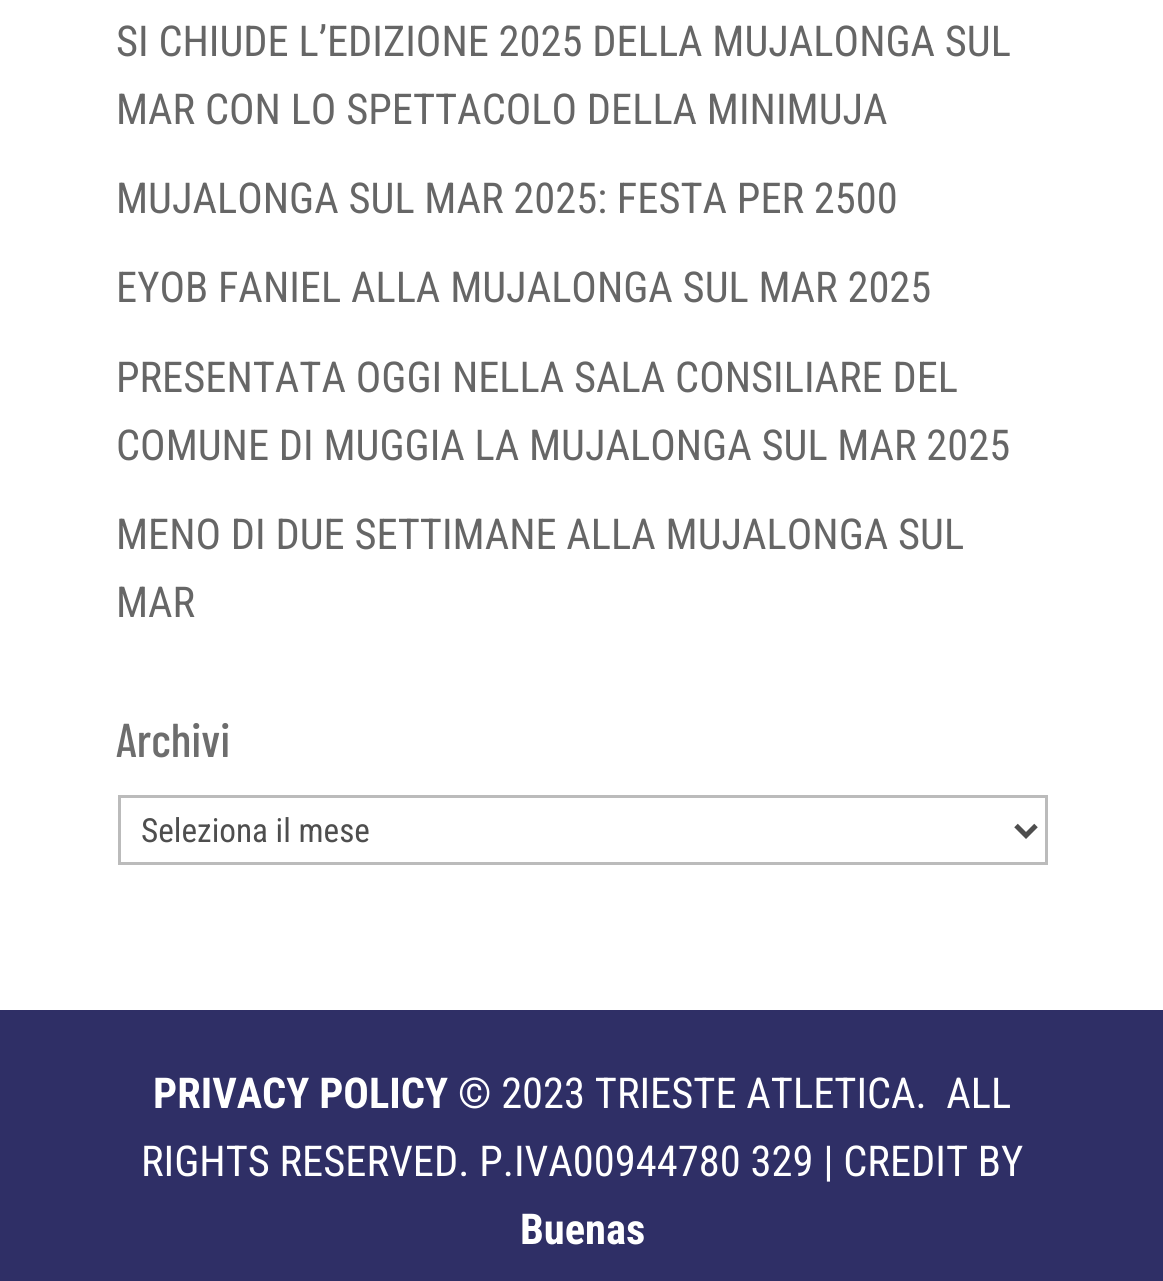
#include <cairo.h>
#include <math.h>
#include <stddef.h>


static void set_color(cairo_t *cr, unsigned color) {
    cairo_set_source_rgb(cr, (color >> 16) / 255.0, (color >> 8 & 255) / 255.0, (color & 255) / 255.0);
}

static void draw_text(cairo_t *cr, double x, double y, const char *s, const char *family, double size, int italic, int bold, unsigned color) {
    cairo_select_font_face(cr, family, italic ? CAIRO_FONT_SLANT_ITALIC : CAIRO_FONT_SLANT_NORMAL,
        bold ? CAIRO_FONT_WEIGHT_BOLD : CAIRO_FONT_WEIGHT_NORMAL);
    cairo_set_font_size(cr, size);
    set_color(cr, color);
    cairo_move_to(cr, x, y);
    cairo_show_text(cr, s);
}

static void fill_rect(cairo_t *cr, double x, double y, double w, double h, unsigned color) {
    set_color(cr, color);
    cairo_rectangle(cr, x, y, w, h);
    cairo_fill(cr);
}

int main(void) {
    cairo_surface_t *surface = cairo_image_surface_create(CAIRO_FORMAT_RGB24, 1163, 1281);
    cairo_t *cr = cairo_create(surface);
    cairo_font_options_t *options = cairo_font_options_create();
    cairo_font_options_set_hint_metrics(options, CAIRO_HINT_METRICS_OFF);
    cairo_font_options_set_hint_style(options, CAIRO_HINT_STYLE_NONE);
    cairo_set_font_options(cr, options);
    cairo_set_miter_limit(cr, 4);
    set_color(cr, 0xFFFFFF);
    cairo_paint(cr);
    draw_text(cr, 116, 56, "SI CHIUDE L’EDIZIONE 2025 DELLA MUJALONGA SUL", "Roboto Condensed", 42.5, 0, 0, 0x666666);
    draw_text(cr, 116, 124, "MAR CON LO SPETTACOLO DELLA MINIMUJA", "Roboto Condensed", 42.5, 0, 0, 0x666666);
    draw_text(cr, 116, 213, "MUJALONGA SUL MAR 2025: FESTA PER 2500", "Roboto Condensed", 42.5, 0, 0, 0x666666);
    draw_text(cr, 116, 302, "EYOB FANIEL ALLA MUJALONGA SUL MAR 2025", "Roboto Condensed", 42.5, 0, 0, 0x666666);
    draw_text(cr, 116, 392, "PRESENTATA OGGI NELLA SALA CONSILIARE DEL", "Roboto Condensed", 42.5, 0, 0, 0x666666);
    draw_text(cr, 116, 460, "COMUNE DI MUGGIA LA MUJALONGA SUL MAR 2025", "Roboto Condensed", 42.5, 0, 0, 0x666666);
    draw_text(cr, 116, 549, "MENO DI DUE SETTIMANE ALLA MUJALONGA SUL", "Roboto Condensed", 42.5, 0, 0, 0x666666);
    draw_text(cr, 116, 617, "MAR", "Roboto Condensed", 42.5, 0, 0, 0x666666);
    draw_text(cr, 116, 757, "Archivi", "Barlow Condensed Medium", 47.5, 0, 0, 0x6D6D6D);
    cairo_rectangle(cr, 119.5, 796.5, 927, 67);
    set_color(cr, 0xBBBBBB);
    cairo_set_line_width(cr, 3);
    cairo_stroke(cr);
    cairo_new_path(cr);
    cairo_move_to(cr, 1016, 825.5);
    cairo_line_to(cr, 1026, 835.5);
    cairo_line_to(cr, 1036, 825.5);
    set_color(cr, 0x4E4E4E);
    cairo_set_line_width(cr, 5);
    cairo_stroke(cr);
    draw_text(cr, 141, 842, "Seleziona il mese", "Roboto Condensed", 33.25, 0, 0, 0x4E4E4E);
    fill_rect(cr, 0, 1010, 1163, 271, 0x2F2F66);
    draw_text(cr, 153, 1108, "PRIVACY POLICY", "Roboto Condensed", 42.5, 0, 1, 0xFFFFFF);
    draw_text(cr, 458, 1108, "© 2023 TRIESTE ATLETICA.  ALL", "Roboto Condensed", 42.5, 0, 0, 0xFFFFFF);
    draw_text(cr, 141, 1176, "RIGHTS RESERVED. P.IVA00944780 329 | CREDIT BY", "Roboto Condensed", 42.5, 0, 0, 0xFFFFFF);
    draw_text(cr, 520, 1244, "Buenas", "Roboto Condensed", 42.5, 0, 1, 0xFFFFFF);
    cairo_surface_write_to_png(surface, "output.png");
    cairo_font_options_destroy(options);
    cairo_destroy(cr);
    cairo_surface_destroy(surface);
    return 0;
}
